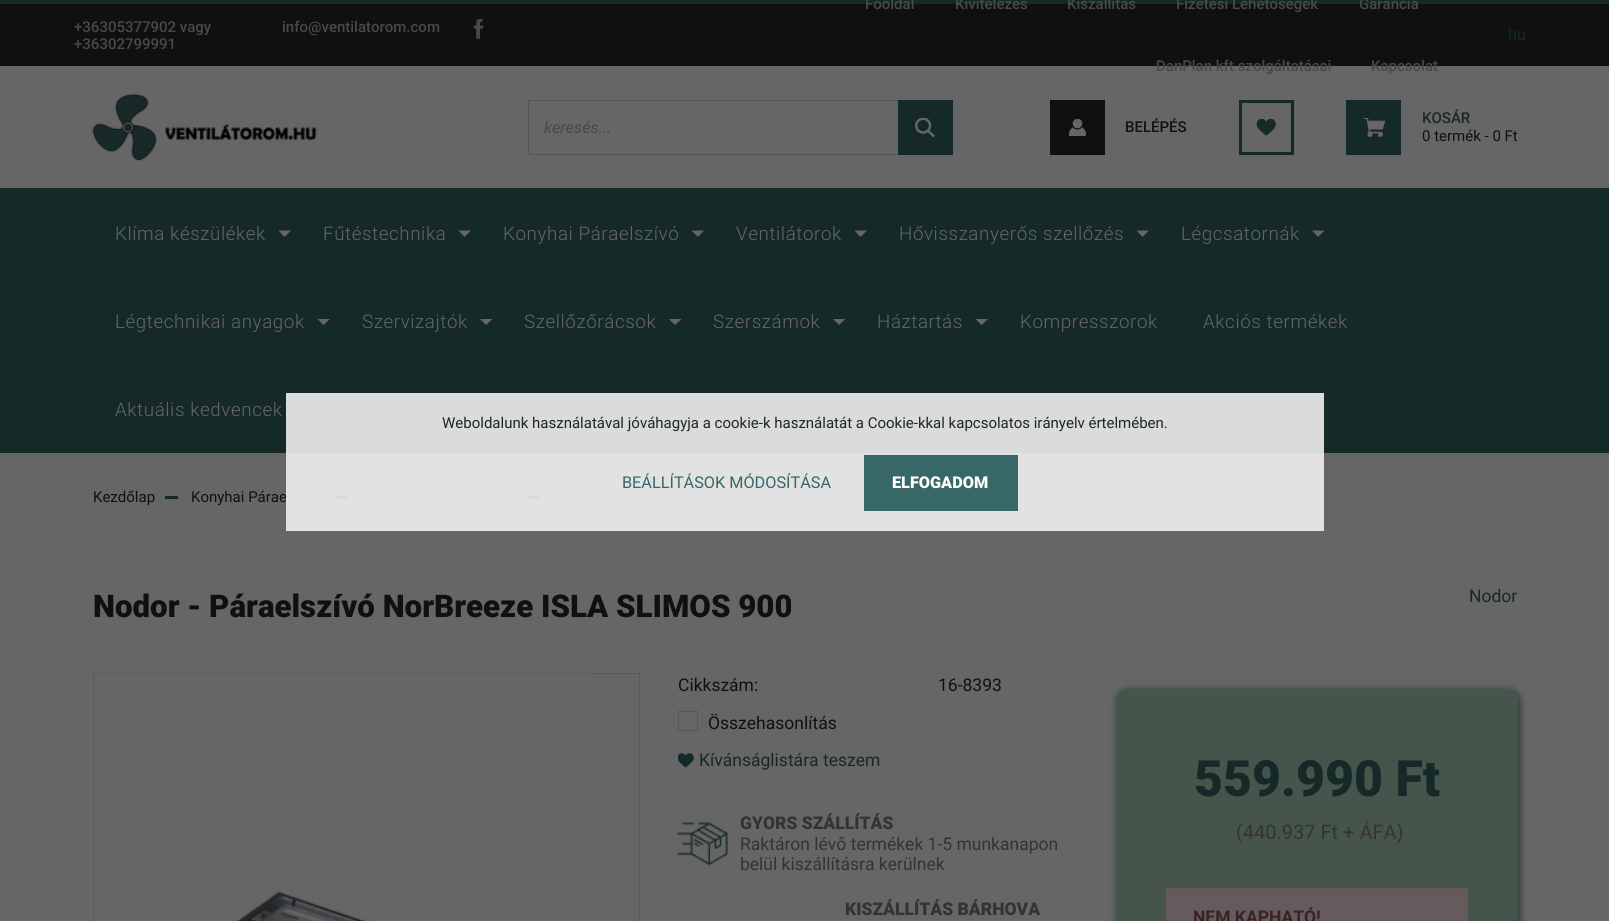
#include <cairo.h>
#include <math.h>
#include <stddef.h>


static void set_color(cairo_t *cr, unsigned color) {
    cairo_set_source_rgb(cr, (color >> 16) / 255.0, (color >> 8 & 255) / 255.0, (color & 255) / 255.0);
}

static void draw_text(cairo_t *cr, double x, double y, const char *s, const char *family, double size, int italic, int bold, unsigned color) {
    cairo_select_font_face(cr, family, italic ? CAIRO_FONT_SLANT_ITALIC : CAIRO_FONT_SLANT_NORMAL,
        bold ? CAIRO_FONT_WEIGHT_BOLD : CAIRO_FONT_WEIGHT_NORMAL);
    cairo_set_font_size(cr, size);
    set_color(cr, color);
    cairo_move_to(cr, x, y);
    cairo_show_text(cr, s);
}

static void draw_spaced(cairo_t *cr, double x, double y, const char *s, double letter, double word) {
    cairo_move_to(cr, x, y);
    while (*s) {
        char ch[5] = {0};
        int n = 0;
        do ch[n++] = *s++; while ((*s & 0xC0) == 0x80);
        cairo_show_text(cr, ch);
        cairo_rel_move_to(cr, letter + word * (*ch == ' '), 0);
    }
}

static void fill_rect(cairo_t *cr, double x, double y, double w, double h, unsigned color) {
    set_color(cr, color);
    cairo_rectangle(cr, x, y, w, h);
    cairo_fill(cr);
}

static void rounded_rect(cairo_t *cr, double x, double y, double w, double h, double r) {
    cairo_new_sub_path(cr);
    cairo_arc(cr, x + w - r, y + h - r, r, 0, M_PI / 2);
    cairo_arc(cr, x + r, y + h - r, r, M_PI / 2, M_PI);
    cairo_arc(cr, x + r, y + r, r, M_PI, 1.5 * M_PI);
    cairo_arc(cr, x + w - r, y + r, r, 1.5 * M_PI, 2 * M_PI);
    cairo_close_path(cr);
}

static void draw_shadow(cairo_t *cr, double x, double y, double w, double h, double r, double blur, double alpha) {
    cairo_push_group_with_content(cr, CAIRO_CONTENT_ALPHA);
    cairo_set_operator(cr, CAIRO_OPERATOR_SOURCE);
    for (int i = 15; i >= -15 && fmin(w, h) + blur * i / 3 > 0; i -= 2) {
        double e = blur * i / 6;
        cairo_set_source_rgba(cr, 0, 0, 0, alpha * erfc((i - 1) / 8.5) / 2);
        rounded_rect(cr, x - e, y - e, w + 2 * e, h + 2 * e, fmax(0, fmin(r + e + blur * .6, fmin(w, h) / 2 + e)));
        cairo_fill(cr);
    }
    cairo_pattern_t *soft = cairo_pop_group(cr);
    cairo_mask(cr, soft);
    cairo_pattern_destroy(soft);
}

static void draw_image(cairo_t *cr, const char *path, double x, double y, double w, double h) {
    cairo_surface_t *image = cairo_image_surface_create_from_png(path);
    cairo_save(cr);
    cairo_set_source_surface(cr, image, x, y);
    cairo_rectangle(cr, x, y, w, h);
    cairo_fill(cr);
    cairo_restore(cr);
    cairo_surface_destroy(image);
}

int main(void) {
    cairo_surface_t *surface = cairo_image_surface_create(CAIRO_FORMAT_RGB24, 1609, 921);
    cairo_t *cr = cairo_create(surface);
    cairo_font_options_t *options = cairo_font_options_create();
    cairo_font_options_set_hint_metrics(options, CAIRO_HINT_METRICS_OFF);
    cairo_font_options_set_hint_style(options, CAIRO_HINT_STYLE_NONE);
    cairo_set_font_options(cr, options);
    cairo_set_miter_limit(cr, 4);
    set_color(cr, 0x666666);
    cairo_paint(cr);
    fill_rect(cr, 0, 0, 1609, 4, 0x162929);
    fill_rect(cr, 0, 4, 1609, 62, 0x101010);
    draw_text(cr, 74, 32, "+36305377902 vagy", "Roboto Medium", 15, 0, 0, 0x49484A);
    draw_text(cr, 74, 49, "+36302799991", "Roboto Medium", 15, 0, 0, 0x49484A);
    draw_text(cr, 282, 32, "info@ventilatorom.com", "Roboto Medium", 15, 0, 0, 0x49484A);
    draw_image(cr, "assets/img1.png", 474, 19, 10, 20);
    draw_text(cr, 865, 9, "Főoldal", "Roboto Medium", 15, 0, 0, 0x49484A);
    draw_text(cr, 955, 9, "Kivitelezés", "Roboto Medium", 15, 0, 0, 0x49484A);
    draw_text(cr, 1067, 9, "Kiszállítás", "Roboto Medium", 15, 0, 0, 0x49484A);
    draw_text(cr, 1176, 9, "Fizetési Lehetőségek", "Roboto Medium", 15, 0, 0, 0x49484A);
    draw_text(cr, 1359, 9, "Garancia", "Roboto Medium", 15, 0, 0, 0x49484A);
    draw_text(cr, 1156, 71, "DanPlan kft szolgáltatásai", "Roboto Medium", 15, 0, 0, 0x49484A);
    draw_text(cr, 1371, 71, "Kapcsolat", "Roboto Medium", 15, 0, 0, 0x49484A);
    draw_text(cr, 1508, 40, "hu", "Roboto", 16.25, 0, 0, 0x162929);
    draw_image(cr, "assets/img2.png", 92, 93, 225, 68);
    cairo_rectangle(cr, 528.5, 100.5, 424, 54);
    set_color(cr, 0x545454);
    cairo_set_line_width(cr, 1);
    cairo_stroke(cr);
    draw_text(cr, 544, 133, "keresés...", "Roboto", 16.25, 1, 0, 0x49484A);
    fill_rect(cr, 898, 100, 55, 55, 0x162929);
    draw_image(cr, "assets/img3.png", 915, 118, 20, 20);
    fill_rect(cr, 1050, 100, 55, 55, 0x101010);
    draw_image(cr, "assets/img4.png", 1069, 119, 17, 17);
    draw_text(cr, 1125, 132, "BELÉPÉS", "Roboto Medium", 15, 0, 0, 0x101010);
    cairo_rectangle(cr, 1240.5, 101.5, 52, 52);
    set_color(cr, 0x162929);
    cairo_set_line_width(cr, 3);
    cairo_stroke(cr);
    draw_image(cr, "assets/img5.png", 1256, 119, 20, 17);
    fill_rect(cr, 1346, 100, 55, 55, 0x162929);
    draw_image(cr, "assets/img6.png", 1363, 118, 23, 19);
    draw_text(cr, 1422, 123, "KOSÁR", "Roboto Medium", 15, 0, 0, 0x162929);
    draw_text(cr, 1422, 141, "0 termék - 0 Ft", "Roboto", 15, 0, 0, 0x101010);
    fill_rect(cr, 0, 188, 1609, 265, 0x162929);
    cairo_select_font_face(cr, "Roboto Light", CAIRO_FONT_SLANT_NORMAL, CAIRO_FONT_WEIGHT_NORMAL);
    cairo_set_font_size(cr, 18.75);
    set_color(cr, 0x666666);
    draw_spaced(cr, 115, 240, "Klíma készülékek", 0.6, 0);
    cairo_new_path(cr);
    cairo_move_to(cr, 278.5, 230.5);
    cairo_line_to(cr, 291, 230.5);
    cairo_line_to(cr, 284.5, 237);
    cairo_close_path(cr);
    cairo_fill(cr);
    draw_spaced(cr, 323, 240, "Fűtéstechnika", 0.6, 0);
    cairo_new_path(cr);
    cairo_move_to(cr, 458.5, 230.5);
    cairo_line_to(cr, 471, 230.5);
    cairo_line_to(cr, 464.5, 237);
    cairo_close_path(cr);
    cairo_fill(cr);
    draw_spaced(cr, 503, 240, "Konyhai Páraelszívó", 0.6, 0);
    cairo_new_path(cr);
    cairo_move_to(cr, 691.5, 230.5);
    cairo_line_to(cr, 704, 230.5);
    cairo_line_to(cr, 698, 237);
    cairo_close_path(cr);
    cairo_fill(cr);
    draw_spaced(cr, 736, 240, "Ventilátorok", 0.6, 0);
    cairo_new_path(cr);
    cairo_move_to(cr, 854.5, 230.5);
    cairo_line_to(cr, 867, 230.5);
    cairo_line_to(cr, 860.5, 237);
    cairo_close_path(cr);
    cairo_fill(cr);
    draw_spaced(cr, 899, 240, "Hővisszanyerős szellőzés", 0.6, 0);
    cairo_new_path(cr);
    cairo_move_to(cr, 1136.5, 230.5);
    cairo_line_to(cr, 1149, 230.5);
    cairo_line_to(cr, 1142.5, 237);
    cairo_close_path(cr);
    cairo_fill(cr);
    draw_spaced(cr, 1181, 240, "Légcsatornák", 0.6, 0);
    cairo_new_path(cr);
    cairo_move_to(cr, 1312, 230.5);
    cairo_line_to(cr, 1324.5, 230.5);
    cairo_line_to(cr, 1318, 237);
    cairo_close_path(cr);
    cairo_fill(cr);
    draw_spaced(cr, 115, 328, "Légtechnikai anyagok", 0.6, 0);
    cairo_new_path(cr);
    cairo_move_to(cr, 317.5, 319);
    cairo_line_to(cr, 330, 319);
    cairo_line_to(cr, 323.5, 325);
    cairo_close_path(cr);
    cairo_fill(cr);
    draw_spaced(cr, 362, 328, "Szervizajtók", 0.6, 0);
    cairo_new_path(cr);
    cairo_move_to(cr, 480, 319);
    cairo_line_to(cr, 492.5, 319);
    cairo_line_to(cr, 486, 325);
    cairo_close_path(cr);
    cairo_fill(cr);
    draw_spaced(cr, 524, 328, "Szellőzőrácsok", 0.6, 0);
    cairo_new_path(cr);
    cairo_move_to(cr, 669, 319);
    cairo_line_to(cr, 681.5, 319);
    cairo_line_to(cr, 675, 325);
    cairo_close_path(cr);
    cairo_fill(cr);
    draw_spaced(cr, 713, 328, "Szerszámok", 0.6, 0);
    cairo_new_path(cr);
    cairo_move_to(cr, 833, 319);
    cairo_line_to(cr, 845.5, 319);
    cairo_line_to(cr, 839, 325);
    cairo_close_path(cr);
    cairo_fill(cr);
    draw_spaced(cr, 877, 328, "Háztartás", 0.6, 0);
    cairo_new_path(cr);
    cairo_move_to(cr, 975.5, 319);
    cairo_line_to(cr, 988, 319);
    cairo_line_to(cr, 981.5, 325);
    cairo_close_path(cr);
    cairo_fill(cr);
    draw_spaced(cr, 1020, 328, "Kompresszorok", 0.6, 0);
    draw_spaced(cr, 1203, 328, "Akciós termékek", 0.6, 0);
    draw_spaced(cr, 115, 416, "Aktuális kedvencek", 0.6, 0);
    draw_text(cr, 93, 502, "Kezdőlap", "Roboto", 15, 0, 0, 0x101010);
    fill_rect(cr, 165, 496, 13, 3, 0x162929);
    draw_text(cr, 191, 502, "Konyhai Párae", "Roboto", 15, 0, 0, 0x101010);
    fill_rect(cr, 335, 496, 13, 3, 0x162929);
    fill_rect(cr, 528, 496, 12, 3, 0x162929);
    draw_text(cr, 93, 617, "Nodor - Páraelszívó NorBreeze ISLA SLIMOS 900", "Roboto Black", 31.25, 0, 0, 0x101010);
    draw_text(cr, 1469, 602, "Nodor", "Roboto", 17.5, 0, 0, 0x162929);
    cairo_rectangle(cr, 93.5, 673.5, 546, 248);
    set_color(cr, 0x5A5A5A);
    cairo_set_line_width(cr, 1);
    cairo_stroke(cr);
    draw_image(cr, "assets/img7.png", 93, 673, 501, 248);
    draw_text(cr, 678, 691, "Cikkszám:", "Roboto", 17.5, 0, 0, 0x101010);
    draw_text(cr, 938, 691, "16-8393", "Roboto", 17.5, 0, 0, 0x101010);
    cairo_rectangle(cr, 678.5, 711.5, 19, 19);
    set_color(cr, 0x565656);
    cairo_stroke(cr);
    draw_text(cr, 708, 729, "Összehasonlítás", "Roboto", 17.5, 0, 0, 0x101010);
    draw_image(cr, "assets/img8.png", 678, 753, 16, 15);
    draw_text(cr, 699, 766, "Kívánságlistára teszem", "Roboto", 17.5, 0, 0, 0x162929);
    draw_image(cr, "assets/img9.png", 677, 822, 51, 44);
    draw_text(cr, 740, 829, "GYORS SZÁLLÍTÁS", "Roboto Black", 17.5, 0, 0, 0x333333);
    draw_text(cr, 740, 850, "Raktáron lévő termékek 1-5 munkanapon", "Roboto", 17.5, 0, 0, 0x333333);
    draw_text(cr, 740, 870, "belül kiszállításra kerülnek", "Roboto", 17.5, 0, 0, 0x333333);
    draw_text(cr, 845, 915, "KISZÁLLÍTÁS BÁRHOVA", "Roboto Black", 17.5, 0, 0, 0x333333);
    set_color(cr, 0x162929);
    draw_shadow(cr, 1118, 691, 401, 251, 9, 4, 1);
    set_color(cr, 0x46554B);
    rounded_rect(cr, 1116, 690, 402, 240, 9);
    cairo_fill(cr);
    draw_text(cr, 1194, 796, "559.990 Ft", "Roboto Black", 50, 0, 0, 0x162929);
    draw_text(cr, 1236, 839, "(440.937 Ft + ÁFA)", "Roboto", 20, 0, 0, 0x333333);
    set_color(cr, 0x655B5C);
    cairo_rectangle(cr, 1166.5, 888.5, 301, 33);
    cairo_fill_preserve(cr);
    set_color(cr, 0x655758);
    cairo_stroke(cr);
    draw_text(cr, 1193, 923, "NEM KAPHATÓ!", "Roboto", 17.5, 0, 1, 0x3B2123);
    cairo_set_source_rgba(cr, 0.941, 0.941, 0.941, 0.9);
    cairo_rectangle(cr, 286, 393, 1038, 138);
    cairo_fill(cr);
    draw_text(cr, 442, 428, "Weboldalunk használatával jóváhagyja a cookie-k használatát a Cookie-kkal kapcsolatos irányelv értelmében.", "Roboto", 15, 0, 0, 0x212529);
    draw_text(cr, 622, 488, "BEÁLLÍTÁSOK MÓDOSÍTÁSA", "Roboto", 16.25, 0, 0, 0x376767);
    fill_rect(cr, 864, 455, 154, 56, 0x376767);
    draw_text(cr, 892, 488, "ELFOGADOM", "Roboto Black", 16.25, 0, 0, 0xFFFFFF);
    cairo_surface_write_to_png(surface, "output.png");
    cairo_font_options_destroy(options);
    cairo_destroy(cr);
    cairo_surface_destroy(surface);
    return 0;
}
